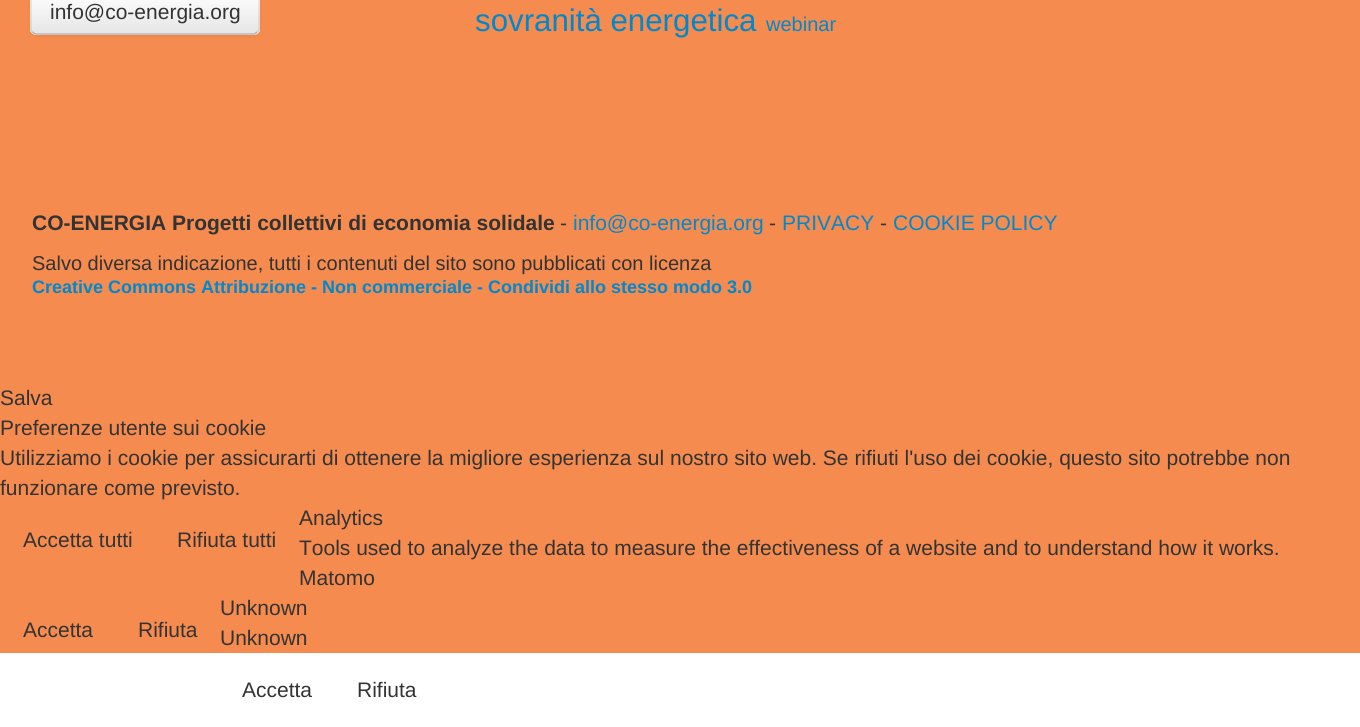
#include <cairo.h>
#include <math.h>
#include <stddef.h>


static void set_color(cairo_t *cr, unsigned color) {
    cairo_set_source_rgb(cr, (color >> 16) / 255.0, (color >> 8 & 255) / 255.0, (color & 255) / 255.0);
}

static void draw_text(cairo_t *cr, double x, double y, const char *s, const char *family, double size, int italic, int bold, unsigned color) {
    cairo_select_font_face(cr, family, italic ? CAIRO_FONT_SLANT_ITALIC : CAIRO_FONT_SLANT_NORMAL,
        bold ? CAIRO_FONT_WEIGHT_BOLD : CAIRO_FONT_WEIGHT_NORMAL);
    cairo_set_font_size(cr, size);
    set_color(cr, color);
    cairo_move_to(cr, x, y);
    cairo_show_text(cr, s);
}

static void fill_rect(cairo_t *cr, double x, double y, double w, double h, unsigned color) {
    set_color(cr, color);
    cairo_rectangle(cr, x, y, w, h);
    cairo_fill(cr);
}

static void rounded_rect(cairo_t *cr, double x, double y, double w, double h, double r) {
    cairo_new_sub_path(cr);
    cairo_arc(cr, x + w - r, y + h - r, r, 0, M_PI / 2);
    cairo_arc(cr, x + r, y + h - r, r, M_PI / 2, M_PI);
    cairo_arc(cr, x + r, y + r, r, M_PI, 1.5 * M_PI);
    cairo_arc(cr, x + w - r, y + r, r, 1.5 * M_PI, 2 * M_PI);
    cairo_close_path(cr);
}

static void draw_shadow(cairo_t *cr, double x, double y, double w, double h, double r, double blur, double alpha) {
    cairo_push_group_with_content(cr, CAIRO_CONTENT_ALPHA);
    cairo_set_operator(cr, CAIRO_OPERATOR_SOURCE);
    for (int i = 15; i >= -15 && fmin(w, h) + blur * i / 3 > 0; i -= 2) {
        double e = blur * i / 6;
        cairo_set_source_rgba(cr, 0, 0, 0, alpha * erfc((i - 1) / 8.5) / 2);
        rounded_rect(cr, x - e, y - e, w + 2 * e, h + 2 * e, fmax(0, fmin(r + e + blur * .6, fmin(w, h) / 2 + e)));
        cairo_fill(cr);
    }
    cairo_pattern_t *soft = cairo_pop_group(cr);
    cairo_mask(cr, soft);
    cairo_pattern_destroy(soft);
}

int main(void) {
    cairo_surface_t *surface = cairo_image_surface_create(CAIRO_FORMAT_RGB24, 1360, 727);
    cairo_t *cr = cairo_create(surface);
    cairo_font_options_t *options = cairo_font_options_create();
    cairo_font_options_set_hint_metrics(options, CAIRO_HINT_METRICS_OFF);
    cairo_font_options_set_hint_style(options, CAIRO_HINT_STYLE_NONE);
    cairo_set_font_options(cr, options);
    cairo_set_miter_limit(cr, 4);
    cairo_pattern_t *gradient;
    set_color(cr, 0xFFFFFF);
    cairo_paint(cr);
    fill_rect(cr, 0, 0, 1360, 653, 0xF58B4E);
    set_color(cr, 0x000000);
    draw_shadow(cr, 30, -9, 230, 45, 6, 1.5, 0.05);
    set_color(cr, 0xF5F5F5);
    rounded_rect(cr, 30, -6, 230, 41, 6);
    cairo_fill(cr);
    cairo_save(cr);
    rounded_rect(cr, 30, -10, 230, 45, 6);
    cairo_clip(cr);
    gradient = cairo_pattern_create_linear(145, -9, 145, 33);
    cairo_pattern_add_color_stop_rgba(gradient, 0, 1, 1, 1, 1);
    cairo_pattern_add_color_stop_rgba(gradient, 1, 0.902, 0.902, 0.902, 1);
    cairo_set_source(cr, gradient);
    cairo_pattern_destroy(gradient);
    cairo_rectangle(cr, 30, 0, 230, 33);
    cairo_fill(cr);
    cairo_restore(cr);
    cairo_new_path(cr);
    cairo_move_to(cr, 257, 32);
    cairo_curve_to(cr, 256, 33, 255, 34, 253.5, 34);
    cairo_line_to(cr, 36, 34);
    cairo_curve_to(cr, 34.5, 34, 33.5, 33, 32.5, 32);
    set_color(cr, 0xB3B3B3);
    cairo_set_line_width(cr, 1.5);
    cairo_stroke(cr);
    cairo_new_path(cr);
    cairo_move_to(cr, 32.5, 32);
    cairo_curve_to(cr, 31.5, 31, 31, 30, 31, 28.5);
    cairo_line_to(cr, 31, -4.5);
    cairo_curve_to(cr, 31, -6, 31.5, -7, 32.5, -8);
    cairo_curve_to(cr, 33.5, -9, 34.5, -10, 36, -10);
    cairo_line_to(cr, 253.5, -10);
    cairo_curve_to(cr, 255, -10, 256, -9, 257, -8);
    cairo_curve_to(cr, 258, -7, 259, -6, 259, -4.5);
    cairo_line_to(cr, 259, 28.5);
    cairo_curve_to(cr, 259, 30, 258, 31, 257, 32);
    cairo_set_source_rgba(cr, 0, 0, 0, 0.1);
    cairo_stroke(cr);
    draw_text(cr, 50, 19, "info@co-energia.org", "Liberation Sans", 21, 0, 0, 0x333333);
    draw_text(cr, 475, 31, "sovranità energetica", "Liberation Sans", 31.25, 0, 0, 0x0088CC);
    draw_text(cr, 766, 31, "webinar", "Liberation Sans", 20, 0, 0, 0x0088CC);
    draw_text(cr, 32, 230, "CO-ENERGIA Progetti collettivi di economia solidale", "Liberation Sans", 21, 0, 1, 0x333333);
    draw_text(cr, 560, 230, "-", "Liberation Sans", 21, 0, 0, 0x333333);
    draw_text(cr, 573, 230, "info@co-energia.org", "Liberation Sans", 21, 0, 0, 0x0088CC);
    draw_text(cr, 769, 230, "-", "Liberation Sans", 21, 0, 0, 0x333333);
    draw_text(cr, 782, 230, "PRIVACY", "Liberation Sans", 21, 0, 0, 0x0088CC);
    draw_text(cr, 880, 230, "-", "Liberation Sans", 21, 0, 0, 0x333333);
    draw_text(cr, 893, 230, "COOKIE POLICY", "Liberation Sans", 21, 0, 0, 0x0088CC);
    draw_text(cr, 32, 270, "Salvo diversa indicazione, tutti i contenuti del sito sono pubblicati con licenza", "Liberation Sans", 20, 0, 0, 0x333333);
    draw_text(cr, 32, 293, "Creative Commons Attribuzione - Non commerciale - Condividi allo stesso modo 3.0", "Liberation Sans", 18, 0, 1, 0x0088CC);
    draw_text(cr, 0, 405, "Salva", "Liberation Sans", 21, 0, 0, 0x333333);
    draw_text(cr, 0, 435, "Preferenze utente sui cookie", "Liberation Sans", 21, 0, 0, 0x333333);
    draw_text(cr, 0, 465, "Utilizziamo i cookie per assicurarti di ottenere la migliore esperienza sul nostro sito web. Se rifiuti l'uso dei cookie, questo sito potrebbe non", "Liberation Sans", 21, 0, 0, 0x333333);
    draw_text(cr, 0, 495, "funzionare come previsto.", "Liberation Sans", 21, 0, 0, 0x333333);
    draw_text(cr, 299, 525, "Analytics", "Liberation Sans", 21, 0, 0, 0x333333);
    draw_text(cr, 299, 555, "Tools used to analyze the data to measure the effectiveness of a website and to understand how it works.", "Liberation Sans", 21, 0, 0, 0x333333);
    draw_text(cr, 299, 585, "Matomo", "Liberation Sans", 21, 0, 0, 0x333333);
    draw_text(cr, 23, 637, "Accetta", "Liberation Sans", 21, 0, 0, 0x333333);
    draw_text(cr, 138, 637, "Rifiuta", "Liberation Sans", 21, 0, 0, 0x333333);
    draw_text(cr, 23, 547, "Accetta tutti", "Liberation Sans", 21, 0, 0, 0x333333);
    draw_text(cr, 177, 547, "Rifiuta tutti", "Liberation Sans", 21, 0, 0, 0x333333);
    draw_text(cr, 220, 615, "Unknown", "Liberation Sans", 21, 0, 0, 0x333333);
    draw_text(cr, 220, 645, "Unknown", "Liberation Sans", 21, 0, 0, 0x333333);
    draw_text(cr, 242, 697, "Accetta", "Liberation Sans", 21, 0, 0, 0x333333);
    draw_text(cr, 357, 697, "Rifiuta", "Liberation Sans", 21, 0, 0, 0x333333);
    cairo_surface_write_to_png(surface, "output.png");
    cairo_font_options_destroy(options);
    cairo_destroy(cr);
    cairo_surface_destroy(surface);
    return 0;
}
